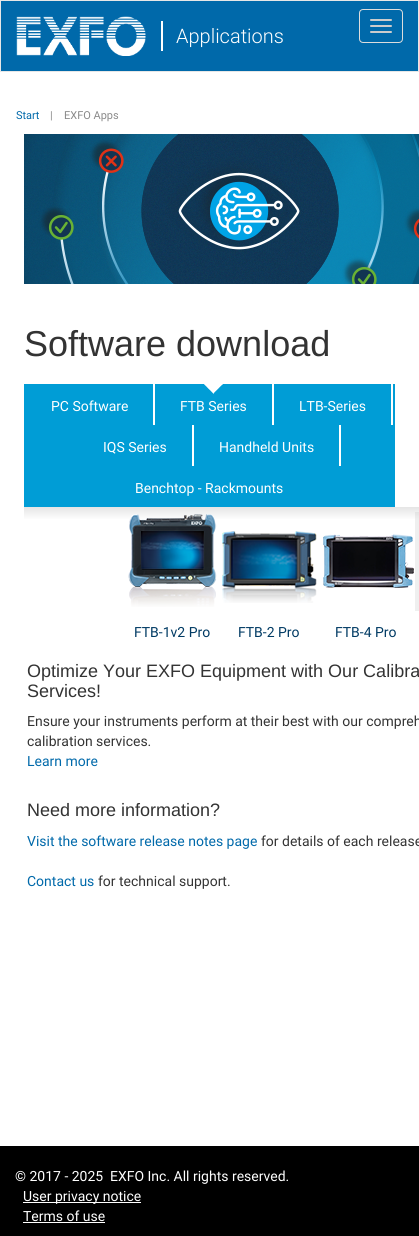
#include <cairo.h>
#include <math.h>
#include <stddef.h>


static void set_color(cairo_t *cr, unsigned color) {
    cairo_set_source_rgb(cr, (color >> 16) / 255.0, (color >> 8 & 255) / 255.0, (color & 255) / 255.0);
}

static void draw_text(cairo_t *cr, double x, double y, const char *s, const char *family, double size, int italic, int bold, unsigned color) {
    cairo_select_font_face(cr, family, italic ? CAIRO_FONT_SLANT_ITALIC : CAIRO_FONT_SLANT_NORMAL,
        bold ? CAIRO_FONT_WEIGHT_BOLD : CAIRO_FONT_WEIGHT_NORMAL);
    cairo_set_font_size(cr, size);
    set_color(cr, color);
    cairo_move_to(cr, x, y);
    cairo_show_text(cr, s);
}

static void fill_rect(cairo_t *cr, double x, double y, double w, double h, unsigned color) {
    set_color(cr, color);
    cairo_rectangle(cr, x, y, w, h);
    cairo_fill(cr);
}

static void rounded_rect(cairo_t *cr, double x, double y, double w, double h, double r) {
    cairo_new_sub_path(cr);
    cairo_arc(cr, x + w - r, y + h - r, r, 0, M_PI / 2);
    cairo_arc(cr, x + r, y + h - r, r, M_PI / 2, M_PI);
    cairo_arc(cr, x + r, y + r, r, M_PI, 1.5 * M_PI);
    cairo_arc(cr, x + w - r, y + r, r, 1.5 * M_PI, 2 * M_PI);
    cairo_close_path(cr);
}

static void draw_image(cairo_t *cr, const char *path, double x, double y, double w, double h) {
    cairo_surface_t *image = cairo_image_surface_create_from_png(path);
    cairo_save(cr);
    cairo_set_source_surface(cr, image, x, y);
    cairo_rectangle(cr, x, y, w, h);
    cairo_fill(cr);
    cairo_restore(cr);
    cairo_surface_destroy(image);
}

int main(void) {
    cairo_surface_t *surface = cairo_image_surface_create(CAIRO_FORMAT_RGB24, 419, 1236);
    cairo_t *cr = cairo_create(surface);
    cairo_font_options_t *options = cairo_font_options_create();
    cairo_font_options_set_hint_metrics(options, CAIRO_HINT_METRICS_OFF);
    cairo_font_options_set_hint_style(options, CAIRO_HINT_STYLE_NONE);
    cairo_set_font_options(cr, options);
    cairo_set_miter_limit(cr, 4);
    cairo_pattern_t *gradient;
    set_color(cr, 0xFFFFFF);
    cairo_paint(cr);
    set_color(cr, 0x0069AA);
    cairo_rectangle(cr, 0.5, 0.5, 418, 71);
    cairo_fill_preserve(cr);
    set_color(cr, 0xE7E7E7);
    cairo_set_line_width(cr, 1);
    cairo_stroke(cr);
    draw_image(cr, "assets/img1.png", 16, 16, 130, 40);
    fill_rect(cr, 161, 21, 2, 30, 0xFFFFFF);
    draw_text(cr, 176, 43, "Applications", "Roboto Light", 20, 0, 0, 0xFFFFFF);
    rounded_rect(cr, 359.5, 9.5, 43, 33, 3.5);
    set_color(cr, 0xDDDDDD);
    cairo_stroke(cr);
    set_color(cr, 0xCCCCCC);
    rounded_rect(cr, 370, 19, 22, 2, 1);
    cairo_fill(cr);
    rounded_rect(cr, 370, 25, 22, 2, 1);
    cairo_fill(cr);
    rounded_rect(cr, 370, 31, 22, 2, 1);
    cairo_fill(cr);
    draw_text(cr, 16, 119, "Start", "Roboto", 11, 0, 0, 0x0069AA);
    draw_text(cr, 50, 119, "|", "Roboto", 11, 0, 0, 0x898989);
    draw_text(cr, 64, 119, "EXFO Apps", "Roboto", 11, 0, 0, 0x898989);
    draw_image(cr, "assets/img2.png", 24, 134, 395, 150);
    draw_text(cr, 24, 356, "Software download", "Liberation Sans", 36, 0, 0, 0x333333);
    fill_rect(cr, 24, 384, 371, 123, 0x009DD6);
    fill_rect(cr, 153, 384, 2, 41, 0xFFFFFF);
    draw_text(cr, 51, 411, "PC Software", "Roboto", 14, 0, 0, 0xFFFFFF);
    fill_rect(cr, 272, 384, 2, 41, 0xFFFFFF);
    draw_image(cr, "assets/img3.png", 204, 384, 19, 10);
    draw_text(cr, 180, 411, "FTB Series", "Roboto", 14, 0, 0, 0xFFFFFF);
    fill_rect(cr, 391, 384, 2, 41, 0xFFFFFF);
    draw_text(cr, 299, 411, "LTB-Series", "Roboto", 14, 0, 0, 0xFFFFFF);
    fill_rect(cr, 192, 425, 2, 41, 0xFFFFFF);
    draw_text(cr, 103, 452, "IQS Series", "Roboto", 14, 0, 0, 0xFFFFFF);
    fill_rect(cr, 339, 425, 2, 41, 0xFFFFFF);
    draw_text(cr, 219, 452, "Handheld Units", "Roboto", 14, 0, 0, 0xFFFFFF);
    draw_text(cr, 135, 493, "Benchtop - Rackmounts", "Roboto", 14, 0, 0, 0xFFFFFF);
    gradient = cairo_pattern_create_linear(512, 507, 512, 652);
    cairo_pattern_add_color_stop_rgba(gradient, 0, 0.898, 0.898, 0.898, 1);
    cairo_pattern_add_color_stop_rgba(gradient, 0.09, 1, 1, 1, 1);
    cairo_set_source(cr, gradient);
    cairo_pattern_destroy(gradient);
    cairo_rectangle(cr, 24, 507, 395, 12);
    cairo_fill(cr);
    gradient = cairo_pattern_create_linear(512, 507, 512, 652);
    cairo_pattern_add_color_stop_rgba(gradient, 0, 0.859, 0.859, 0.859, 1);
    cairo_pattern_add_color_stop_rgba(gradient, 0.09, 0.937, 0.937, 0.937, 1);
    cairo_set_source(cr, gradient);
    cairo_pattern_destroy(gradient);
    cairo_rectangle(cr, 415, 512, 4, 99);
    cairo_fill(cr);
    draw_image(cr, "assets/img4.png", 128, 514, 89, 93);
    draw_text(cr, 134, 637, "FTB-1v2 Pro", "Roboto", 14, 0, 0, 0x003A63);
    draw_image(cr, "assets/img5.png", 222, 531, 95, 72);
    draw_text(cr, 238, 637, "FTB-2 Pro", "Roboto", 14, 0, 0, 0x003A63);
    draw_image(cr, "assets/img6.png", 323, 534, 91, 54);
    draw_text(cr, 335, 637, "FTB-4 Pro", "Roboto", 14, 0, 0, 0x003A63);
    draw_text(cr, 27, 677, "Optimize Your EXFO Equipment with Our Calibra", "Liberation Sans", 18, 0, 0, 0x333333);
    draw_text(cr, 27, 697, "Services!", "Liberation Sans", 18, 0, 0, 0x333333);
    draw_text(cr, 27, 726, "Ensure your instruments perform at their best with our compreh", "Roboto", 14, 0, 0, 0x333333);
    draw_text(cr, 27, 746, "calibration services.", "Roboto", 14, 0, 0, 0x333333);
    draw_text(cr, 27, 766, "Learn more", "Roboto", 14, 0, 0, 0x0069AA);
    draw_text(cr, 27, 816, "Need more information?", "Liberation Sans", 18, 0, 0, 0x333333);
    draw_text(cr, 27, 846, "Visit the software release notes page", "Roboto", 14, 0, 0, 0x0069AA);
    draw_text(cr, 261, 846, "for details of each release", "Roboto", 14, 0, 0, 0x333333);
    draw_text(cr, 27, 886, "Contact us", "Roboto", 14, 0, 0, 0x0069AA);
    draw_text(cr, 98, 886, "for technical support.", "Roboto", 14, 0, 0, 0x333333);
    fill_rect(cr, 0, 1146, 419, 90, 0x000000);
    draw_text(cr, 15, 1181, "© 2017 - 2025", "Roboto", 14, 0, 0, 0xFFFFFF);
    draw_text(cr, 110, 1181, "EXFO Inc. All rights reserved.", "Roboto", 14, 0, 0, 0xFFFFFF);
    fill_rect(cr, 23, 1202, 118, 1, 0xFFFFFF);
    draw_text(cr, 23, 1201, "User privacy notice", "Roboto", 14, 0, 0, 0xFFFFFF);
    draw_text(cr, 23, 1221, "Terms of use", "Roboto", 14, 0, 0, 0xFFFFFF);
    fill_rect(cr, 23, 1222, 82, 1, 0xFFFFFF);
    cairo_surface_write_to_png(surface, "output.png");
    cairo_font_options_destroy(options);
    cairo_destroy(cr);
    cairo_surface_destroy(surface);
    return 0;
}
